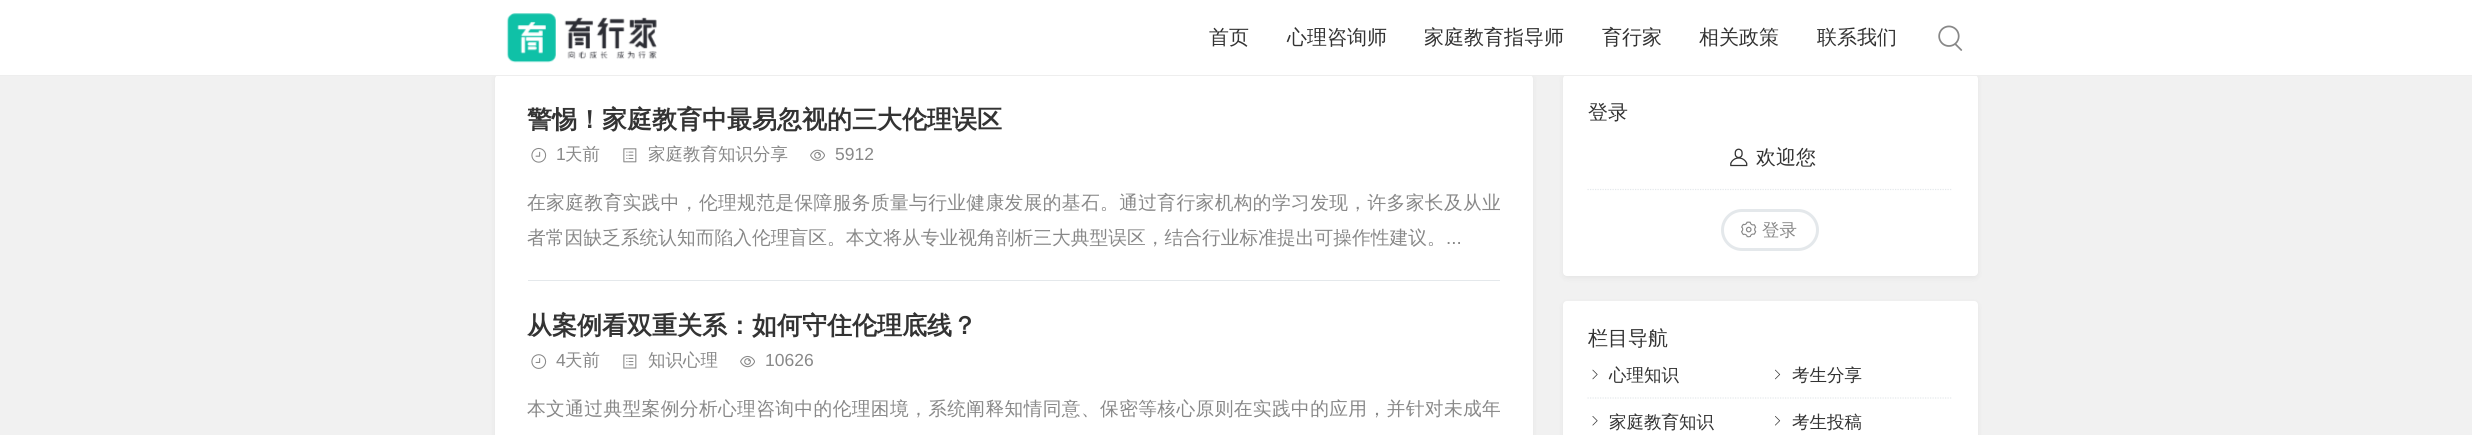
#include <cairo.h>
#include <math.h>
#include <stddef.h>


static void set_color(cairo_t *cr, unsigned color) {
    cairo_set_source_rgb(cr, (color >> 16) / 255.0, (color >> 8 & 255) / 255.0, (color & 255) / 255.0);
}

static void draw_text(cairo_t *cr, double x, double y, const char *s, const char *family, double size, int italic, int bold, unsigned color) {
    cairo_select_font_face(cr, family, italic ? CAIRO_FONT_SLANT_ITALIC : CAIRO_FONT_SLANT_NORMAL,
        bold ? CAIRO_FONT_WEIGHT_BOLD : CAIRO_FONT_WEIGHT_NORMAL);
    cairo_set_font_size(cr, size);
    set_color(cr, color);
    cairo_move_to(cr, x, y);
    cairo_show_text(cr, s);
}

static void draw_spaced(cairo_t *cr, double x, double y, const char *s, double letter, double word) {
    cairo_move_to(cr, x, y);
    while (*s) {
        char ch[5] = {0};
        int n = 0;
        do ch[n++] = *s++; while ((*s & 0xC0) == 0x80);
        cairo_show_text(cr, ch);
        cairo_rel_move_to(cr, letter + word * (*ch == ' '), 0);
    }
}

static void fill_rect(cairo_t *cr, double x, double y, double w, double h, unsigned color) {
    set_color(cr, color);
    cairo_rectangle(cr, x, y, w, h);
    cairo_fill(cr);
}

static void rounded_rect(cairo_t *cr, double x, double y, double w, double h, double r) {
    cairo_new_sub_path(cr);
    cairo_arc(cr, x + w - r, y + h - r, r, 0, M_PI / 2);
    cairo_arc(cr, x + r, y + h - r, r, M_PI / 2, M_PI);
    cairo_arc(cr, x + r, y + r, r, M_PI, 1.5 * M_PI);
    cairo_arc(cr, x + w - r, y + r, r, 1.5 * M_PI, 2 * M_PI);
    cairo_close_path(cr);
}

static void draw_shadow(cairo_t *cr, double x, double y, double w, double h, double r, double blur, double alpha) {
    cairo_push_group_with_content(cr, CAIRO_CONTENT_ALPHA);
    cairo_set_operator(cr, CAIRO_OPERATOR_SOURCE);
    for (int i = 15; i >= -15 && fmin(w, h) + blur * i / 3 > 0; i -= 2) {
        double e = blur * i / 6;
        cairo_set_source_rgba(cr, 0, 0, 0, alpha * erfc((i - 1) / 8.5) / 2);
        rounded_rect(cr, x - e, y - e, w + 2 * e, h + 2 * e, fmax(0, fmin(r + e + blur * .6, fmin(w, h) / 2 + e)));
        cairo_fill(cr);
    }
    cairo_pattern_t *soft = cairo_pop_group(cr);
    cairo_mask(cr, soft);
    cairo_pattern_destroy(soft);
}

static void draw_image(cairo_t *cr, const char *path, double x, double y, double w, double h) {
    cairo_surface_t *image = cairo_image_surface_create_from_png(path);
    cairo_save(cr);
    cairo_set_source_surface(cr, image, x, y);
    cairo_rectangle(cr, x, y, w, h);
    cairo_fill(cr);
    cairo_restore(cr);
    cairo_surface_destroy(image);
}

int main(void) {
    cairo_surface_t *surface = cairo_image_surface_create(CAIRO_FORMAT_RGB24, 2472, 435);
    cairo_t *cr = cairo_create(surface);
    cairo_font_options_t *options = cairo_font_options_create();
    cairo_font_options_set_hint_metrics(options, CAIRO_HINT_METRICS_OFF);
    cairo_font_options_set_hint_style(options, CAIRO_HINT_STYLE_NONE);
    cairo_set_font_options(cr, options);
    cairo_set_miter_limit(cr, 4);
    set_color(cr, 0xF1F1F1);
    cairo_paint(cr);
    set_color(cr, 0x000000);
    draw_shadow(cr, 495, 76, 1038, 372, 4, 3, 0.05);
    draw_shadow(cr, 1563, 76, 415, 202, 4, 3, 0.05);
    fill_rect(cr, 0, 0, 2472, 75, 0xFFFFFF);
    rounded_rect(cr, 495, 75, 1038, 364, 4);
    cairo_fill(cr);
    rounded_rect(cr, 1563, 75, 415, 201, 4);
    cairo_fill(cr);
    fill_rect(cr, 0, 75, 2472, 1, 0xEEEEEE);
    draw_image(cr, "assets/img1.png", 506, 13, 151, 50);
    draw_text(cr, 1209, 44, "首页", "WenQuanYi Zen Hei Medium", 20, 0, 0, 0x333333);
    draw_text(cr, 1287, 44, "心理咨询师", "WenQuanYi Zen Hei Medium", 20, 0, 0, 0x333333);
    draw_text(cr, 1424, 44, "家庭教育指导师", "WenQuanYi Zen Hei Medium", 20, 0, 0, 0x333333);
    draw_text(cr, 1602, 44, "育行家", "WenQuanYi Zen Hei Medium", 20, 0, 0, 0x333333);
    draw_text(cr, 1699, 44, "相关政策", "WenQuanYi Zen Hei Medium", 20, 0, 0, 0x333333);
    draw_text(cr, 1817, 44, "联系我们", "WenQuanYi Zen Hei Medium", 20, 0, 0, 0x333333);
    draw_image(cr, "assets/img2.png", 1938, 25, 25, 26);
    fill_rect(cr, 528, 280, 972, 1, 0xE4E8EB);
    draw_text(cr, 527, 128, "警惕！家庭教育中最易忽视的三大伦理误区", "WenQuanYi Zen Hei", 25, 0, 1, 0x333333);
    draw_image(cr, "assets/img3.png", 531, 147, 16, 16);
    draw_text(cr, 556, 160, "1", "Liberation Sans", 17.5, 0, 0, 0x888888);
    draw_text(cr, 565, 160, "天前", "WenQuanYi Zen Hei Medium", 17.5, 0, 0, 0x888888);
    draw_image(cr, "assets/img4.png", 623, 148, 14, 15);
    draw_text(cr, 648, 160, "家庭教育知识分享", "WenQuanYi Zen Hei Medium", 17.5, 0, 0, 0x888888);
    draw_image(cr, "assets/img5.png", 810, 149, 15, 12);
    draw_text(cr, 835, 160, "5912", "Liberation Sans", 17.5, 0, 0, 0x888888);
    cairo_select_font_face(cr, "WenQuanYi Zen Hei Medium", CAIRO_FONT_SLANT_NORMAL, CAIRO_FONT_WEIGHT_NORMAL);
    cairo_set_font_size(cr, 18.75);
    draw_spaced(cr, 527, 209, "在家庭教育实践中，伦理规范是保障服务质量与行业健康发展的基石。通过育行家机构的学习发现，许多家长及从业", 0.35, 0);
    draw_text(cr, 527, 244, "者常因缺乏系统认知而陷入伦理盲区。本文将从专业视角剖析三大典型误区，结合行业标准提出可操作性建议。", "WenQuanYi Zen Hei Medium", 18.75, 0, 0, 0x888888);
    draw_text(cr, 1446, 244, "...", "Liberation Sans", 18.75, 0, 0, 0x888888);
    draw_text(cr, 527, 334, "从案例看双重关系：如何守住伦理底线？", "WenQuanYi Zen Hei", 25, 0, 1, 0x333333);
    draw_image(cr, "assets/img6.png", 531, 354, 16, 15);
    draw_text(cr, 556, 366, "4", "Liberation Sans", 17.5, 0, 0, 0x888888);
    draw_text(cr, 565, 366, "天前", "WenQuanYi Zen Hei Medium", 17.5, 0, 0, 0x888888);
    draw_image(cr, "assets/img7.png", 623, 354, 14, 15);
    draw_text(cr, 648, 366, "知识心理", "WenQuanYi Zen Hei Medium", 17.5, 0, 0, 0x888888);
    draw_image(cr, "assets/img8.png", 740, 355, 15, 13);
    draw_text(cr, 765, 366, "10626", "Liberation Sans", 17.5, 0, 0, 0x888888);
    cairo_select_font_face(cr, "WenQuanYi Zen Hei Medium", CAIRO_FONT_SLANT_NORMAL, CAIRO_FONT_WEIGHT_NORMAL);
    cairo_set_font_size(cr, 18.75);
    draw_spaced(cr, 527, 415, "本文通过典型案例分析心理咨询中的伦理困境，系统阐释知情同意、保密等核心原则在实践中的应用，并针对未成年", 0.35, 0);
    draw_text(cr, 1588, 119, "登录", "WenQuanYi Zen Hei Medium", 20, 0, 0, 0x333333);
    cairo_new_path(cr);
    cairo_move_to(cr, 1587.5, 189.5);
    cairo_line_to(cr, 1952.5, 189.5);
    set_color(cr, 0xE4E8EB);
    cairo_set_line_width(cr, 1.2);
    cairo_set_dash(cr, (double[]){1.25, 1.25}, 2, 0);
    cairo_stroke(cr);
    draw_image(cr, "assets/img9.png", 1730, 148, 18, 19);
    draw_text(cr, 1756, 164, "欢迎您", "WenQuanYi Zen Hei Medium", 20, 0, 0, 0x333333);
    rounded_rect(cr, 1722.5, 210.5, 95, 39, 19.5);
    set_color(cr, 0xE4E8EB);
    cairo_set_line_width(cr, 3);
    cairo_set_dash(cr, NULL, 0, 0);
    cairo_stroke(cr);
    draw_image(cr, "assets/img10.png", 1741, 221, 16, 17);
    draw_text(cr, 1762, 236, "登录", "WenQuanYi Zen Hei Medium", 17.5, 0, 0, 0x888888);
    set_color(cr, 0x000000);
    draw_shadow(cr, 1563, 303, 415, 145, 4, 3, 0.05);
    set_color(cr, 0xFFFFFF);
    rounded_rect(cr, 1563, 301, 415, 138, 4);
    cairo_fill(cr);
    draw_text(cr, 1588, 345, "栏目导航", "WenQuanYi Zen Hei Medium", 20, 0, 0, 0x333333);
    cairo_new_path(cr);
    cairo_move_to(cr, 1587.5, 398);
    cairo_line_to(cr, 1770, 398);
    set_color(cr, 0xE4E8EB);
    cairo_set_line_width(cr, 1.2);
    cairo_set_dash(cr, (double[]){1.25, 1.25}, 2, 0);
    cairo_stroke(cr);
    draw_image(cr, "assets/img11.png", 1592, 369, 6, 11);
    draw_text(cr, 1609, 381, "心理知识", "WenQuanYi Zen Hei Medium", 17.5, 0, 0, 0x333333);
    cairo_new_path(cr);
    cairo_move_to(cr, 1770, 398);
    cairo_line_to(cr, 1952.5, 398);
    set_color(cr, 0xE4E8EB);
    cairo_stroke(cr);
    draw_image(cr, "assets/img12.png", 1775, 369, 6, 11);
    draw_text(cr, 1792, 381, "考生分享", "WenQuanYi Zen Hei Medium", 17.5, 0, 0, 0x333333);
    draw_image(cr, "assets/img13.png", 1592, 416, 6, 10);
    draw_text(cr, 1609, 428, "家庭教育知识", "WenQuanYi Zen Hei Medium", 17.5, 0, 0, 0x333333);
    draw_image(cr, "assets/img14.png", 1775, 416, 6, 10);
    draw_text(cr, 1792, 428, "考生投稿", "WenQuanYi Zen Hei Medium", 17.5, 0, 0, 0x333333);
    cairo_surface_write_to_png(surface, "output.png");
    cairo_font_options_destroy(options);
    cairo_destroy(cr);
    cairo_surface_destroy(surface);
    return 0;
}
